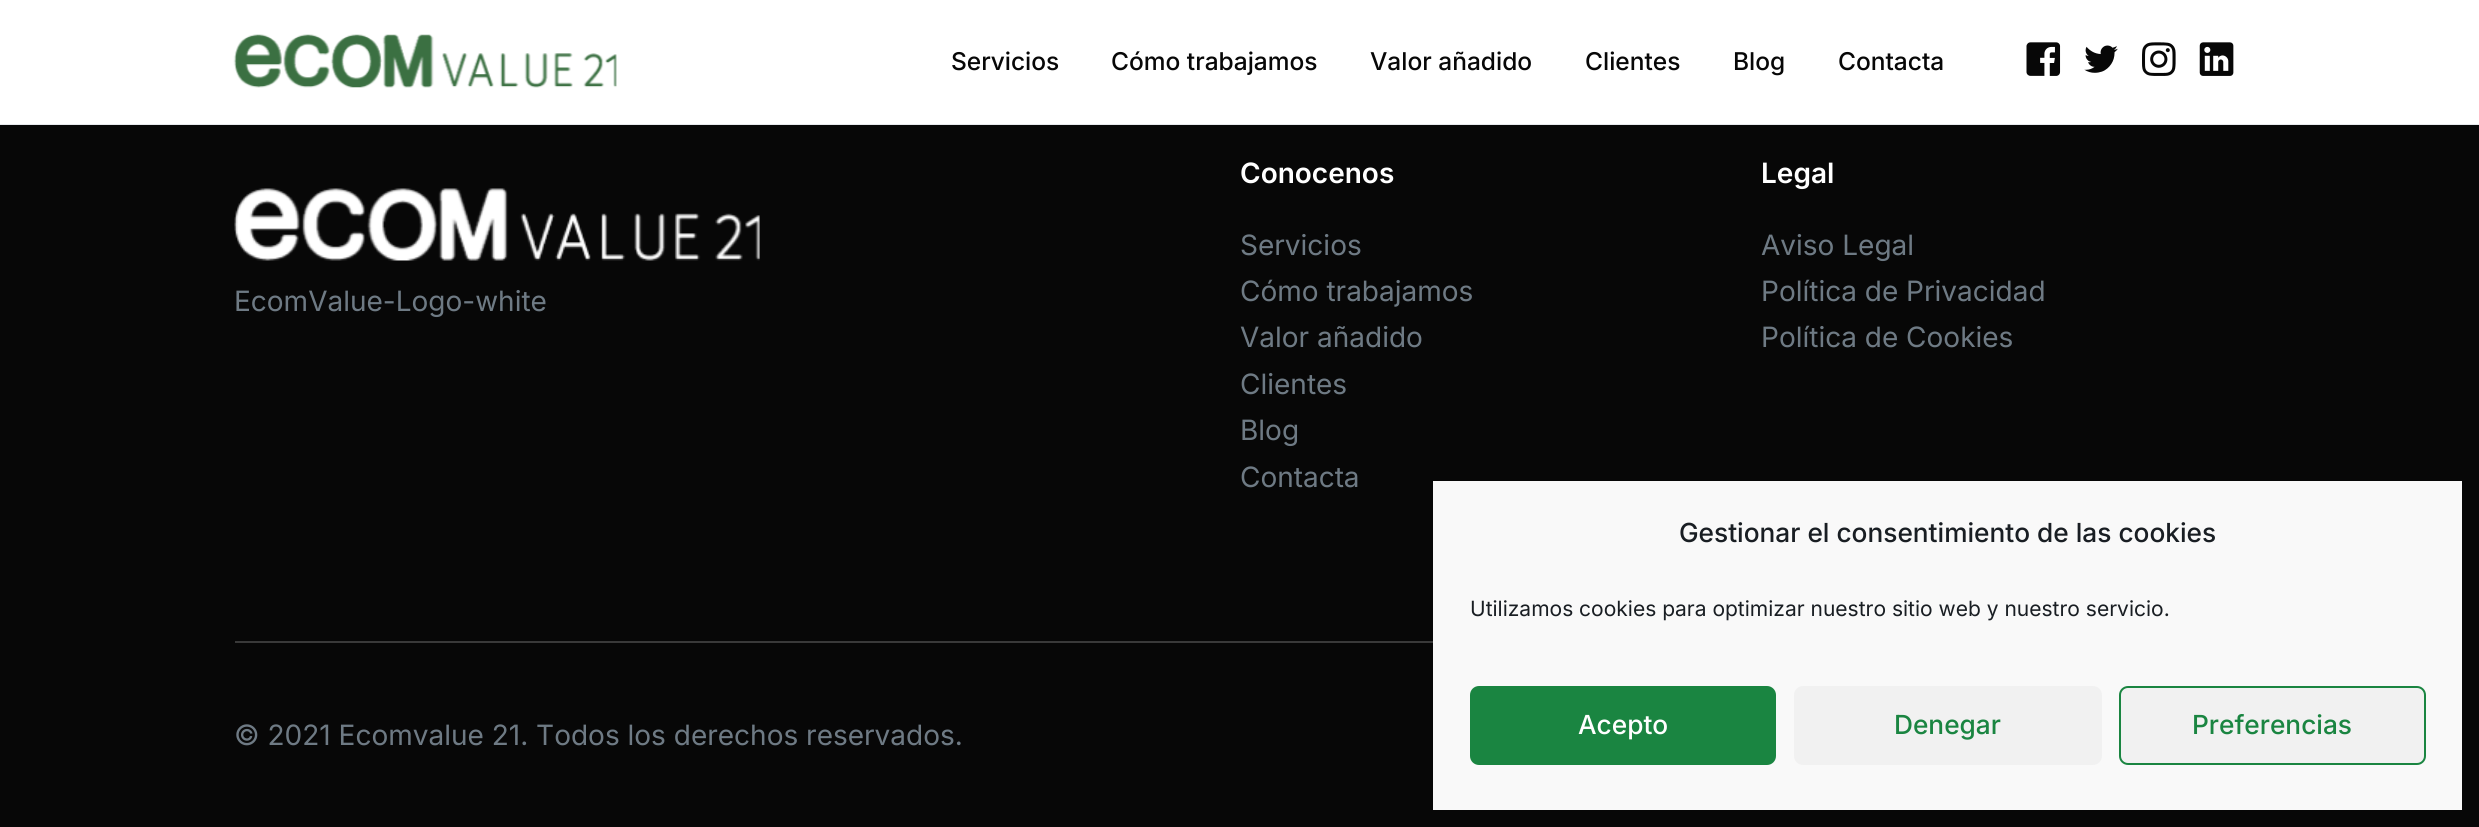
#include <cairo.h>
#include <math.h>
#include <stddef.h>


static void set_color(cairo_t *cr, unsigned color) {
    cairo_set_source_rgb(cr, (color >> 16) / 255.0, (color >> 8 & 255) / 255.0, (color & 255) / 255.0);
}

static void draw_text(cairo_t *cr, double x, double y, const char *s, const char *family, double size, int italic, int bold, unsigned color) {
    cairo_select_font_face(cr, family, italic ? CAIRO_FONT_SLANT_ITALIC : CAIRO_FONT_SLANT_NORMAL,
        bold ? CAIRO_FONT_WEIGHT_BOLD : CAIRO_FONT_WEIGHT_NORMAL);
    cairo_set_font_size(cr, size);
    set_color(cr, color);
    cairo_move_to(cr, x, y);
    cairo_show_text(cr, s);
}

static void fill_rect(cairo_t *cr, double x, double y, double w, double h, unsigned color) {
    set_color(cr, color);
    cairo_rectangle(cr, x, y, w, h);
    cairo_fill(cr);
}

static void rounded_rect(cairo_t *cr, double x, double y, double w, double h, double r) {
    cairo_new_sub_path(cr);
    cairo_arc(cr, x + w - r, y + h - r, r, 0, M_PI / 2);
    cairo_arc(cr, x + r, y + h - r, r, M_PI / 2, M_PI);
    cairo_arc(cr, x + r, y + r, r, M_PI, 1.5 * M_PI);
    cairo_arc(cr, x + w - r, y + r, r, 1.5 * M_PI, 2 * M_PI);
    cairo_close_path(cr);
}

static void draw_image(cairo_t *cr, const char *path, double x, double y, double w, double h) {
    cairo_surface_t *image = cairo_image_surface_create_from_png(path);
    cairo_save(cr);
    cairo_set_source_surface(cr, image, x, y);
    cairo_rectangle(cr, x, y, w, h);
    cairo_fill(cr);
    cairo_restore(cr);
    cairo_surface_destroy(image);
}

int main(void) {
    cairo_surface_t *surface = cairo_image_surface_create(CAIRO_FORMAT_RGB24, 2479, 827);
    cairo_t *cr = cairo_create(surface);
    cairo_font_options_t *options = cairo_font_options_create();
    cairo_font_options_set_hint_metrics(options, CAIRO_HINT_METRICS_OFF);
    cairo_font_options_set_hint_style(options, CAIRO_HINT_STYLE_NONE);
    cairo_set_font_options(cr, options);
    cairo_set_miter_limit(cr, 4);
    set_color(cr, 0x070707);
    cairo_paint(cr);
    fill_rect(cr, 0, 124, 2479, 1, 0xE6E9EC);
    fill_rect(cr, 0, 0, 2479, 124, 0xFFFFFF);
    draw_image(cr, "assets/img1.png", 233, 34, 384, 54);
    draw_text(cr, 951, 70, "Servicios", "Inter Medium", 24.5, 0, 0, 0x070707);
    draw_text(cr, 1111, 70, "Cómo trabajamos", "Inter Medium", 24.5, 0, 0, 0x070707);
    draw_text(cr, 1370, 70, "Valor añadido", "Inter Medium", 24.5, 0, 0, 0x070707);
    draw_text(cr, 1585, 70, "Clientes", "Inter Medium", 24.5, 0, 0, 0x070707);
    draw_text(cr, 1733, 70, "Blog", "Inter Medium", 24.5, 0, 0, 0x070707);
    draw_text(cr, 1838, 70, "Contacta", "Inter Medium", 24.5, 0, 0, 0x070707);
    draw_image(cr, "assets/img2.png", 2026, 42, 35, 34);
    draw_image(cr, "assets/img3.png", 2084, 45, 34, 28);
    draw_image(cr, "assets/img4.png", 2142, 42, 34, 34);
    draw_image(cr, "assets/img5.png", 2199, 42, 35, 34);
    draw_image(cr, "assets/img6.png", 234, 188, 526, 73);
    draw_text(cr, 234, 311, "EcomValue-Logo-white", "Inter", 28, 0, 0, 0x6E7A84);
    draw_text(cr, 1240, 183, "Conocenos", "Inter SemiBold", 28, 0, 0, 0xFFFFFF);
    draw_text(cr, 1240, 255, "Servicios", "Inter", 28, 0, 0, 0x6E7A84);
    draw_text(cr, 1240, 301, "Cómo trabajamos", "Inter", 28, 0, 0, 0x6E7A84);
    draw_text(cr, 1240, 347, "Valor añadido", "Inter", 28, 0, 0, 0x6E7A84);
    draw_text(cr, 1240, 394, "Clientes", "Inter", 28, 0, 0, 0x6E7A84);
    draw_text(cr, 1240, 440, "Blog", "Inter", 28, 0, 0, 0x6E7A84);
    draw_text(cr, 1240, 487, "Contacta", "Inter", 28, 0, 0, 0x6E7A84);
    draw_text(cr, 1761, 183, "Legal", "Inter SemiBold", 28, 0, 0, 0xFFFFFF);
    draw_text(cr, 1761, 255, "Aviso Legal", "Inter", 28, 0, 0, 0x6E7A84);
    draw_text(cr, 1761, 301, "Política de Privacidad", "Inter", 28, 0, 0, 0x6E7A84);
    draw_text(cr, 1761, 347, "Política de Cookies", "Inter", 28, 0, 0, 0x6E7A84);
    fill_rect(cr, 235, 641, 1198, 2, 0x393939);
    draw_text(cr, 234, 745, "© 2021 Ecomvalue 21. Todos los derechos reservados.", "Inter", 28, 0, 0, 0x6E7A84);
    fill_rect(cr, 1433, 481, 1029, 329, 0xF9F9F9);
    draw_text(cr, 1679, 542, "Gestionar el consentimiento de las cookies", "Inter Medium", 26.25, 0, 0, 0x191E23);
    draw_text(cr, 1470, 616, "Utilizamos cookies para optimizar nuestro sitio web y nuestro servicio.", "Inter", 21, 0, 0, 0x191E23);
    set_color(cr, 0x1A8541);
    rounded_rect(cr, 1471, 687, 304, 77, 8);
    cairo_fill_preserve(cr);
    cairo_stroke(cr);
    draw_text(cr, 1578, 734, "Acepto", "Inter Medium", 26.25, 0, 0, 0xFFFFFF);
    set_color(cr, 0xF1F1F1);
    rounded_rect(cr, 1794, 686, 308, 79, 9);
    cairo_fill(cr);
    draw_text(cr, 1894, 734, "Denegar", "Inter Medium", 26.25, 0, 0, 0x1A8541);
    set_color(cr, 0xF1F1F1);
    rounded_rect(cr, 2120, 687, 305, 77, 8);
    cairo_fill_preserve(cr);
    set_color(cr, 0x1A8541);
    cairo_stroke(cr);
    draw_text(cr, 2192, 734, "Preferencias", "Inter Medium", 26.25, 0, 0, 0x1A8541);
    cairo_surface_write_to_png(surface, "output.png");
    cairo_font_options_destroy(options);
    cairo_destroy(cr);
    cairo_surface_destroy(surface);
    return 0;
}
